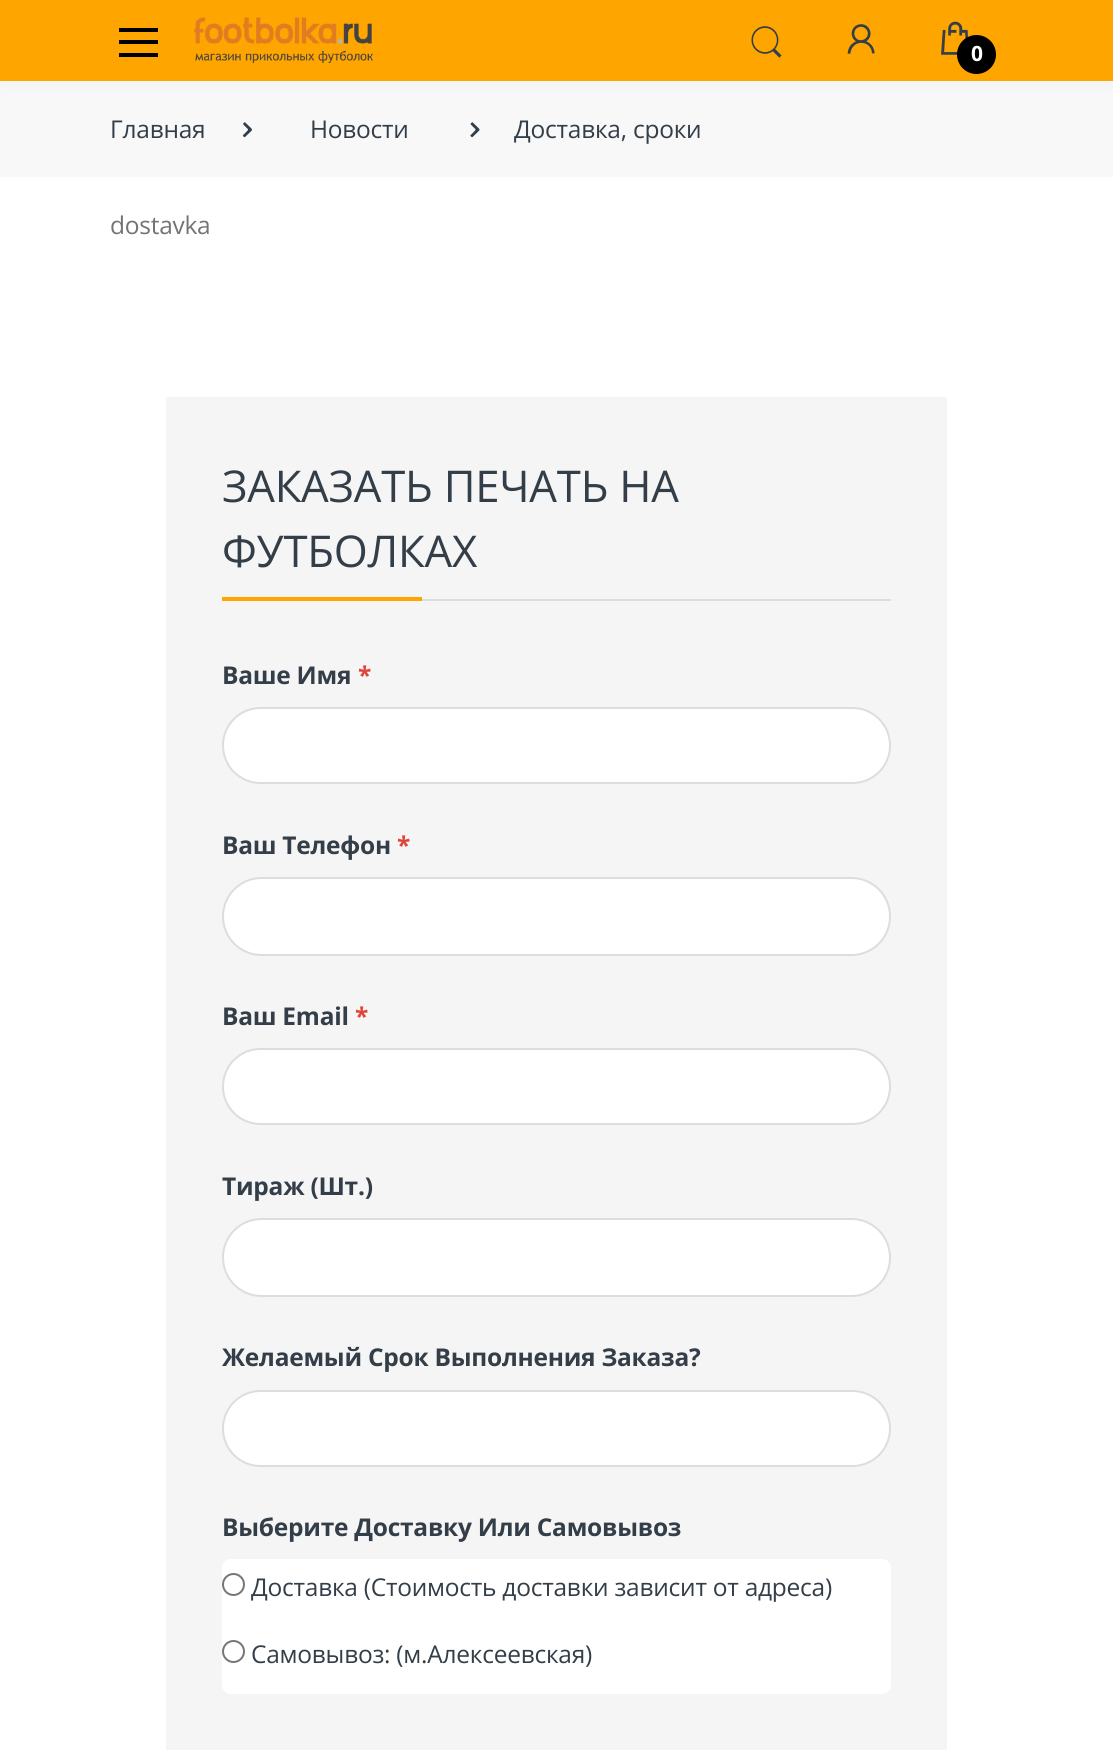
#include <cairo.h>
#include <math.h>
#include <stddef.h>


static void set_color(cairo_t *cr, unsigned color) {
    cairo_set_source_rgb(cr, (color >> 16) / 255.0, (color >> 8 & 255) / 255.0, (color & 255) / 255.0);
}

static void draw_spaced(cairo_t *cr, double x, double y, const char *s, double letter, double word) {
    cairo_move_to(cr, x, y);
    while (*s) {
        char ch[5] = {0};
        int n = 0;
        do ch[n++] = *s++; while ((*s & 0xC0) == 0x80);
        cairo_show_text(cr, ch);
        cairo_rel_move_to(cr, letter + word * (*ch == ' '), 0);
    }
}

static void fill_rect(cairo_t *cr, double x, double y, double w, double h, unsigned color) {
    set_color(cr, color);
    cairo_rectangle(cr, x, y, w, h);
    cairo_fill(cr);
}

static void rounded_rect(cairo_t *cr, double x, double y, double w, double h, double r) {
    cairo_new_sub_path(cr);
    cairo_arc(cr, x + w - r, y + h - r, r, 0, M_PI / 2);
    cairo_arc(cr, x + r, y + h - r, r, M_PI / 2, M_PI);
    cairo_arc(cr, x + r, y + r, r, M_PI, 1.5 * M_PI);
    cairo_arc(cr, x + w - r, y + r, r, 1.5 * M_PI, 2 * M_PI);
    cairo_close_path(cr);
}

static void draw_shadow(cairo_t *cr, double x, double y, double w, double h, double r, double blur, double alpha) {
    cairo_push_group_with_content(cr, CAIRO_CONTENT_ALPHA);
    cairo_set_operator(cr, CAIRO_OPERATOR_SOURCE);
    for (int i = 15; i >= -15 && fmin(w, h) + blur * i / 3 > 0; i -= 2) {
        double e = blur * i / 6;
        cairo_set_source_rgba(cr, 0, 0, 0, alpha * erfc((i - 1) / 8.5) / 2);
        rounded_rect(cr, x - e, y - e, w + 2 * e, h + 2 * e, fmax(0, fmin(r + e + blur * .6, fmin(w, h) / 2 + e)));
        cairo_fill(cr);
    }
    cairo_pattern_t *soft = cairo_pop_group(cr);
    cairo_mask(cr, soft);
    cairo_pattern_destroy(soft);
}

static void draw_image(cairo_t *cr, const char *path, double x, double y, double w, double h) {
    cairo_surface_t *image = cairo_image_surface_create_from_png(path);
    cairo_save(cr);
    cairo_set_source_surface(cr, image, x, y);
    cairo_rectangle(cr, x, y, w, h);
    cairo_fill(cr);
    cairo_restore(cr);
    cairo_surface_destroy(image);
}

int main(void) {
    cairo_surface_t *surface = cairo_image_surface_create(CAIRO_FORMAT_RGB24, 1113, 1750);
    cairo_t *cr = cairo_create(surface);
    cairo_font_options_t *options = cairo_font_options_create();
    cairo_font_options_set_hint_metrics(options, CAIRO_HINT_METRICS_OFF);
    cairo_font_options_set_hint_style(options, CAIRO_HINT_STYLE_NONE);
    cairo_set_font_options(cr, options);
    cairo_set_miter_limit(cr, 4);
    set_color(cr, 0xFFFFFF);
    cairo_paint(cr);
    fill_rect(cr, 0, 81, 1113, 96, 0xF8F8F8);
    set_color(cr, 0x97A4AF);
    draw_shadow(cr, 0, 2, 1113, 80, 0, 9, 0.1);
    fill_rect(cr, 0, 0, 1113, 81, 0xFFA500);
    fill_rect(cr, 119, 28, 39, 4, 0x000000);
    fill_rect(cr, 119, 40, 39, 4, 0x000000);
    fill_rect(cr, 119, 53, 39, 4, 0x000000);
    draw_image(cr, "assets/img1.png", 194, 17, 179, 46);
    draw_image(cr, "assets/img2.png", 751, 26, 31, 32);
    draw_image(cr, "assets/img3.png", 847, 24, 28, 30);
    draw_image(cr, "assets/img4.png", 941, 21, 27, 34);
    cairo_arc(cr, 976.5, 54.5, 19.5, 0, 2 * M_PI);
    cairo_fill(cr);
    cairo_select_font_face(cr, "Open Sans", CAIRO_FONT_SLANT_NORMAL, CAIRO_FONT_WEIGHT_BOLD);
    cairo_set_font_size(cr, 21);
    set_color(cr, 0xFFFFFF);
    draw_spaced(cr, 971, 61, "0", -0.25, 0);
    cairo_select_font_face(cr, "Open Sans", CAIRO_FONT_SLANT_NORMAL, CAIRO_FONT_WEIGHT_NORMAL);
    cairo_set_font_size(cr, 24.5);
    set_color(cr, 0x333E48);
    draw_spaced(cr, 110, 138, "Главная", -0.25, 0);
    draw_image(cr, "assets/img5.png", 242, 122, 10, 16);
    draw_spaced(cr, 310, 138, "Новости", -0.25, 0);
    draw_image(cr, "assets/img6.png", 470, 122, 10, 16);
    draw_spaced(cr, 514, 138, "Доставка, сроки", -0.25, 0);
    set_color(cr, 0x747474);
    draw_spaced(cr, 110, 234, "dostavka", -0.25, 0);
    fill_rect(cr, 166, 397, 781, 1353, 0xF5F5F5);
    fill_rect(cr, 422, 599, 469, 2, 0xDDDDDD);
    cairo_set_font_size(cr, 43.75);
    set_color(cr, 0x333E48);
    draw_spaced(cr, 222, 502, "ЗАКАЗАТЬ ПЕЧАТЬ НА", -0.25, 0);
    draw_spaced(cr, 222, 567, "ФУТБОЛКАХ", -0.25, 0);
    fill_rect(cr, 222, 597, 200, 4, 0xFFA500);
    cairo_select_font_face(cr, "Open Sans", CAIRO_FONT_SLANT_NORMAL, CAIRO_FONT_WEIGHT_BOLD);
    cairo_set_font_size(cr, 24.5);
    set_color(cr, 0x333E48);
    draw_spaced(cr, 222, 684, "Ваше Имя", -0.25, 0);
    set_color(cr, 0xDE4437);
    draw_spaced(cr, 358, 684, "*", -0.25, 0);
    set_color(cr, 0xFFFFFF);
    rounded_rect(cr, 223, 708, 667, 75, 37.5);
    cairo_fill_preserve(cr);
    set_color(cr, 0xDDDDDD);
    cairo_stroke(cr);
    set_color(cr, 0x333E48);
    draw_spaced(cr, 222, 854, "Ваш Телефон", -0.25, 0);
    set_color(cr, 0xDE4437);
    draw_spaced(cr, 397, 854, "*", -0.25, 0);
    set_color(cr, 0xFFFFFF);
    rounded_rect(cr, 223, 878, 667, 77, 38.5);
    cairo_fill_preserve(cr);
    set_color(cr, 0xDDDDDD);
    cairo_stroke(cr);
    set_color(cr, 0x333E48);
    draw_spaced(cr, 222, 1025, "Ваш Email", -0.25, 0);
    set_color(cr, 0xDE4437);
    draw_spaced(cr, 355, 1025, "*", -0.25, 0);
    set_color(cr, 0xFFFFFF);
    rounded_rect(cr, 223, 1049, 667, 75, 37.5);
    cairo_fill_preserve(cr);
    set_color(cr, 0xDDDDDD);
    cairo_stroke(cr);
    set_color(cr, 0x333E48);
    draw_spaced(cr, 222, 1195, "Тираж (Шт.)", -0.25, 0);
    set_color(cr, 0xFFFFFF);
    rounded_rect(cr, 223, 1219, 667, 77, 38.5);
    cairo_fill_preserve(cr);
    set_color(cr, 0xDDDDDD);
    cairo_stroke(cr);
    set_color(cr, 0x333E48);
    draw_spaced(cr, 222, 1366, "Желаемый Срок Выполнения Заказа?", -0.25, 0);
    set_color(cr, 0xFFFFFF);
    rounded_rect(cr, 223, 1391, 667, 75, 37.5);
    cairo_fill_preserve(cr);
    set_color(cr, 0xDDDDDD);
    cairo_stroke(cr);
    set_color(cr, 0x333E48);
    draw_spaced(cr, 222, 1536, "Выберите Доставку Или Самовывоз", -0.25, 0);
    set_color(cr, 0xFFFFFF);
    cairo_new_path(cr);
    cairo_move_to(cr, 231, 1559);
    cairo_line_to(cr, 882, 1559);
    cairo_curve_to(cr, 887, 1559, 891, 1563, 891, 1568);
    cairo_line_to(cr, 891, 1628);
    cairo_line_to(cr, 222, 1628);
    cairo_line_to(cr, 222, 1568);
    cairo_curve_to(cr, 222, 1563, 226, 1559, 231, 1559);
    cairo_close_path(cr);
    cairo_fill(cr);
    cairo_arc(cr, 233.5, 1584.5, 10.5, 0, 2 * M_PI);
    set_color(cr, 0x767676);
    cairo_stroke(cr);
    cairo_select_font_face(cr, "Open Sans", CAIRO_FONT_SLANT_NORMAL, CAIRO_FONT_WEIGHT_NORMAL);
    set_color(cr, 0x333E48);
    draw_spaced(cr, 251, 1596, "Доставка (Стоимость доставки зависит от адреса)", -0.25, 0);
    set_color(cr, 0xFFFFFF);
    cairo_new_path(cr);
    cairo_move_to(cr, 222, 1626);
    cairo_line_to(cr, 891, 1626);
    cairo_line_to(cr, 891, 1685);
    cairo_curve_to(cr, 891, 1690, 887, 1694, 882, 1694);
    cairo_line_to(cr, 231, 1694);
    cairo_curve_to(cr, 226, 1694, 222, 1690, 222, 1685);
    cairo_close_path(cr);
    cairo_fill(cr);
    cairo_arc(cr, 233.5, 1651.5, 10.5, 0, 2 * M_PI);
    set_color(cr, 0x767676);
    cairo_stroke(cr);
    set_color(cr, 0x333E48);
    draw_spaced(cr, 251, 1663, "Самовывоз: (м.Алексеевская)", -0.25, 0);
    cairo_surface_write_to_png(surface, "output.png");
    cairo_font_options_destroy(options);
    cairo_destroy(cr);
    cairo_surface_destroy(surface);
    return 0;
}
